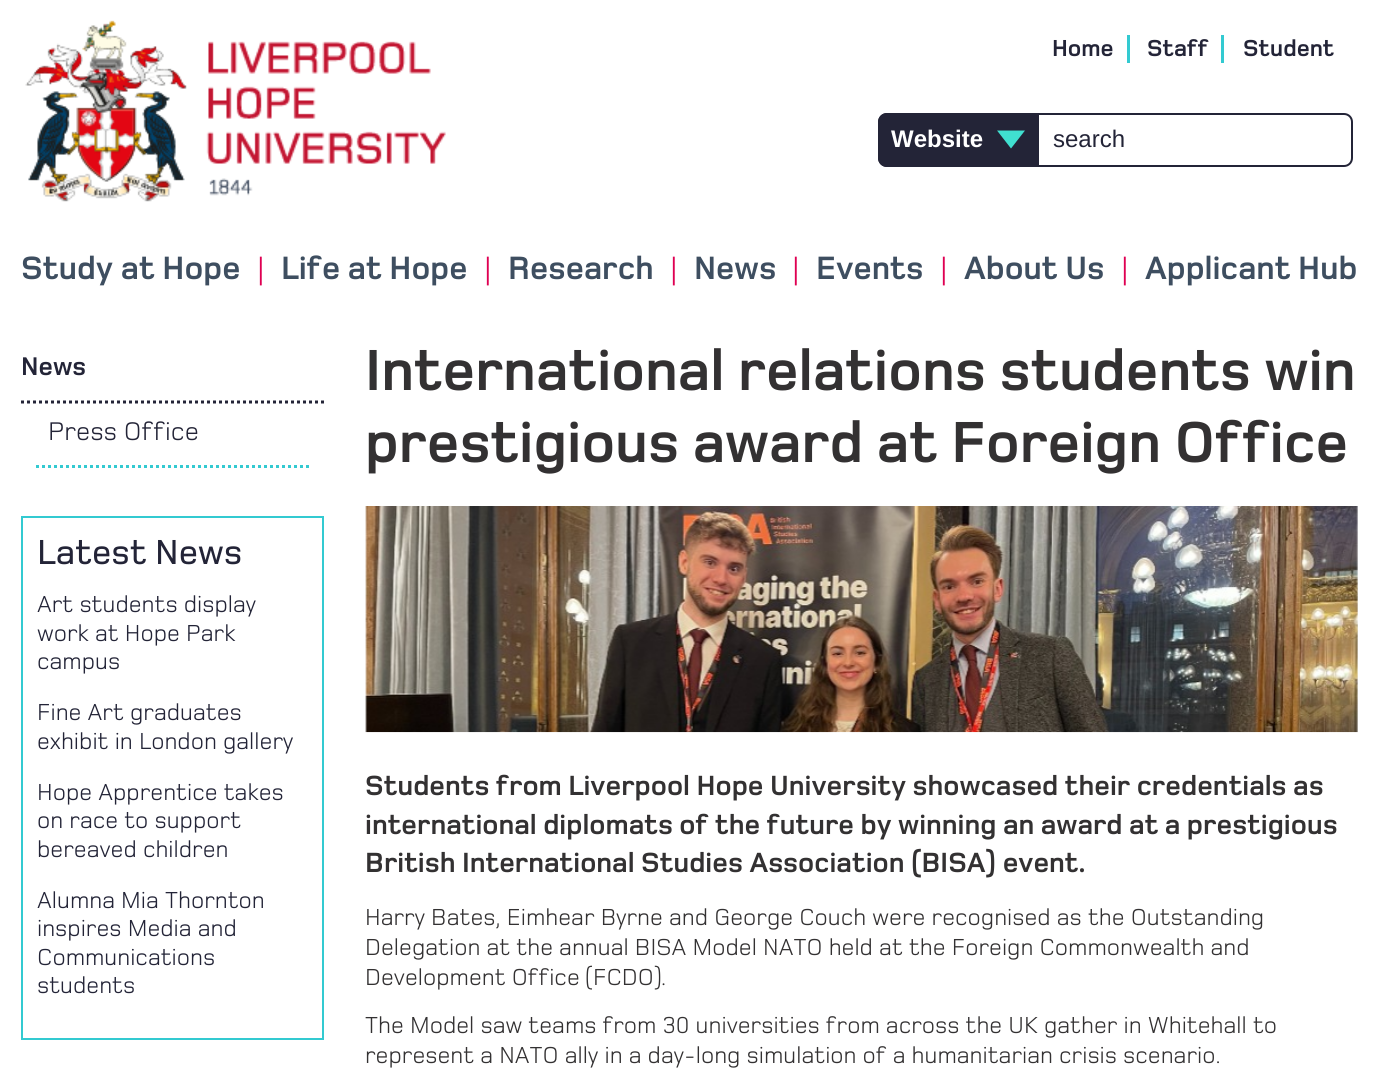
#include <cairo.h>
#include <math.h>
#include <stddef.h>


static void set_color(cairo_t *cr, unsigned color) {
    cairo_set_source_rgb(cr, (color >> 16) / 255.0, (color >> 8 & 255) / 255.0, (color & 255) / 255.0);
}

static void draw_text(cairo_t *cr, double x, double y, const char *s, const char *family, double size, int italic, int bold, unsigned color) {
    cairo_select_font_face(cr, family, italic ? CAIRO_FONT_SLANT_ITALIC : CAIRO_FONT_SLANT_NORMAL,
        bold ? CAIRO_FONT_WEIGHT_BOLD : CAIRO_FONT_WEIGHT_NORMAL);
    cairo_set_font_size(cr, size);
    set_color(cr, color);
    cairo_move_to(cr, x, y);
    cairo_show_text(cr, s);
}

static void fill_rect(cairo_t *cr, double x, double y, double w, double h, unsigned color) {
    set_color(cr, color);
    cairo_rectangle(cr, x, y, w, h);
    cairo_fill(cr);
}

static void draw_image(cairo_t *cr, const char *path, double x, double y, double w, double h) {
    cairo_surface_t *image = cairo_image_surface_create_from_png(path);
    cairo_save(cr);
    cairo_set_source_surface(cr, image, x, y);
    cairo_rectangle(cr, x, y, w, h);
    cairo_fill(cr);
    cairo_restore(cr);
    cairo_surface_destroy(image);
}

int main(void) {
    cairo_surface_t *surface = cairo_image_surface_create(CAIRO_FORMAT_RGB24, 1378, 1087);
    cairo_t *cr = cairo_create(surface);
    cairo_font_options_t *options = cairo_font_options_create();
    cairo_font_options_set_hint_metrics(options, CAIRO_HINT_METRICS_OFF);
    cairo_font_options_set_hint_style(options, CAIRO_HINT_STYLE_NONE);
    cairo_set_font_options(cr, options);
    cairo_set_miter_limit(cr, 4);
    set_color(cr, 0xFFFFFF);
    cairo_paint(cr);
    draw_image(cr, "assets/img1.png", 25, 20, 421, 182);
    fill_rect(cr, 1127, 35, 3, 28, 0x33CAD1);
    draw_text(cr, 1052, 56, "Home", "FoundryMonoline", 24, 0, 0, 0x232437);
    fill_rect(cr, 1221, 35, 3, 28, 0x33CAD1);
    draw_text(cr, 1147, 56, "Staff", "FoundryMonoline", 24, 0, 0, 0x232437);
    draw_text(cr, 1243, 56, "Student", "FoundryMonoline", 24, 0, 0, 0x232437);
    cairo_new_path(cr);
    cairo_move_to(cr, 887, 113);
    cairo_line_to(cr, 1037, 113);
    cairo_line_to(cr, 1037, 167);
    cairo_line_to(cr, 887, 167);
    cairo_curve_to(cr, 882, 167, 878, 163, 878, 158);
    cairo_line_to(cr, 878, 122);
    cairo_curve_to(cr, 878, 117, 882, 113, 887, 113);
    cairo_close_path(cr);
    cairo_fill(cr);
    set_color(cr, 0x40E0D0);
    cairo_new_path(cr);
    cairo_move_to(cr, 997, 130.5);
    cairo_line_to(cr, 1011, 148.5);
    cairo_line_to(cr, 1025, 130.5);
    cairo_close_path(cr);
    cairo_fill(cr);
    cairo_new_path(cr);
    cairo_move_to(cr, 887, 114);
    cairo_line_to(cr, 1036, 114);
    cairo_line_to(cr, 1036, 166);
    cairo_line_to(cr, 887, 166);
    cairo_curve_to(cr, 882.5, 166, 879, 162.5, 879, 158);
    cairo_line_to(cr, 879, 122);
    cairo_curve_to(cr, 879, 117.5, 882.5, 114, 887, 114);
    cairo_close_path(cr);
    set_color(cr, 0x232437);
    cairo_stroke(cr);
    draw_text(cr, 891, 147, "Website", "Liberation Sans", 24, 0, 1, 0xFFFFFF);
    cairo_new_path(cr);
    cairo_move_to(cr, 1038, 114);
    cairo_line_to(cr, 1344, 114);
    cairo_curve_to(cr, 1348.5, 114, 1352, 117.5, 1352, 122);
    cairo_line_to(cr, 1352, 158);
    cairo_curve_to(cr, 1352, 162.5, 1348.5, 166, 1344, 166);
    cairo_line_to(cr, 1038, 166);
    cairo_close_path(cr);
    set_color(cr, 0x232437);
    cairo_stroke(cr);
    draw_text(cr, 1053, 147, "search", "Liberation Sans", 24, 0, 0, 0x232437);
    draw_text(cr, 21, 279, "Study at Hope", "FoundryMonoline", 33.5, 0, 0, 0x3E4E60);
    draw_text(cr, 256, 279, "|", "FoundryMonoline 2", 33.5, 0, 0, 0xDF0052);
    draw_text(cr, 281, 279, "Life at Hope", "FoundryMonoline", 33.5, 0, 0, 0x3E4E60);
    draw_text(cr, 483, 279, "|", "FoundryMonoline 2", 33.5, 0, 0, 0xDF0052);
    draw_text(cr, 508, 279, "Research", "FoundryMonoline", 33.5, 0, 0, 0x3E4E60);
    draw_text(cr, 669, 279, "|", "FoundryMonoline 2", 33.5, 0, 0, 0xDF0052);
    draw_text(cr, 694, 279, "News", "FoundryMonoline", 33.5, 0, 0, 0x3E4E60);
    draw_text(cr, 791, 279, "|", "FoundryMonoline 2", 33.5, 0, 0, 0xDF0052);
    draw_text(cr, 816, 279, "Events", "FoundryMonoline", 33.5, 0, 0, 0x3E4E60);
    draw_text(cr, 939, 279, "|", "FoundryMonoline 2", 33.5, 0, 0, 0xDF0052);
    draw_text(cr, 964, 279, "About Us", "FoundryMonoline", 33.5, 0, 0, 0x3E4E60);
    draw_text(cr, 1120, 279, "|", "FoundryMonoline 2", 33.5, 0, 0, 0xDF0052);
    draw_text(cr, 1145, 279, "Applicant Hub", "FoundryMonoline", 33.5, 0, 0, 0x3E4E60);
    cairo_new_path(cr);
    cairo_move_to(cr, 21, 402);
    cairo_line_to(cr, 324, 402);
    set_color(cr, 0x232437);
    cairo_set_line_width(cr, 3);
    cairo_set_dash(cr, (double[]){3, 3}, 2, 0);
    cairo_stroke(cr);
    draw_text(cr, 21, 375, "News", "FoundryMonoline", 26.5, 0, 0, 0x232437);
    cairo_new_path(cr);
    cairo_move_to(cr, 36, 466.5);
    cairo_line_to(cr, 309, 466.5);
    set_color(cr, 0x33CAD1);
    cairo_stroke(cr);
    draw_text(cr, 48, 440, "Press Office", "FoundryMonoline 2", 26.5, 0, 0, 0x232437);
    draw_text(cr, 365, 390, "International relations students win", "FoundryMonoline", 60, 0, 0, 0x333132);
    draw_text(cr, 365, 462, "prestigious award at Foreign Office", "FoundryMonoline", 60, 0, 0, 0x333132);
    draw_image(cr, "assets/img2.png", 365, 506, 993, 227);
    draw_text(cr, 365, 795, "Students from Liverpool Hope University showcased their credentials as", "FoundryMonoline", 28.8, 0, 0, 0x333132);
    draw_text(cr, 365, 834, "international diplomats of the future by winning an award at a prestigious", "FoundryMonoline", 28.8, 0, 0, 0x333132);
    draw_text(cr, 365, 872, "British International Studies Association (BISA) event.", "FoundryMonoline", 28.8, 0, 0, 0x333132);
    draw_text(cr, 365, 925, "Harry Bates, Eimhear Byrne and George Couch were recognised as the Outstanding", "FoundryMonoline 2", 24, 0, 0, 0x333132);
    draw_text(cr, 365, 955, "Delegation at the annual BISA Model NATO held at the Foreign Commonwealth and", "FoundryMonoline 2", 24, 0, 0, 0x333132);
    draw_text(cr, 365, 985, "Development Office (FCDO).", "FoundryMonoline 2", 24, 0, 0, 0x333132);
    draw_text(cr, 365, 1033, "The Model saw teams from 30 universities from across the UK gather in Whitehall to", "FoundryMonoline 2", 24, 0, 0, 0x333132);
    draw_text(cr, 365, 1063, "represent a NATO ally in a day-long simulation of a humanitarian crisis scenario.", "FoundryMonoline 2", 24, 0, 0, 0x333132);
    cairo_rectangle(cr, 22, 517, 301, 522);
    set_color(cr, 0x33CAD1);
    cairo_set_line_width(cr, 2);
    cairo_set_dash(cr, NULL, 0, 0);
    cairo_stroke(cr);
    draw_text(cr, 37, 564, "Latest News", "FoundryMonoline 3", 36, 0, 0, 0x232437);
    draw_text(cr, 37, 612, "Art students display", "FoundryMonoline 2", 24, 0, 0, 0x232437);
    draw_text(cr, 37, 641, "work at Hope Park", "FoundryMonoline 2", 24, 0, 0, 0x232437);
    draw_text(cr, 37, 669, "campus", "FoundryMonoline 2", 24, 0, 0, 0x232437);
    draw_text(cr, 37, 720, "Fine Art graduates", "FoundryMonoline 2", 24, 0, 0, 0x232437);
    draw_text(cr, 37, 749, "exhibit in London gallery", "FoundryMonoline 2", 24, 0, 0, 0x232437);
    draw_text(cr, 37, 800, "Hope Apprentice takes", "FoundryMonoline 2", 24, 0, 0, 0x232437);
    draw_text(cr, 37, 828, "on race to support", "FoundryMonoline 2", 24, 0, 0, 0x232437);
    draw_text(cr, 37, 857, "bereaved children", "FoundryMonoline 2", 24, 0, 0, 0x232437);
    draw_text(cr, 37, 908, "Alumna Mia Thornton", "FoundryMonoline 2", 24, 0, 0, 0x232437);
    draw_text(cr, 37, 936, "inspires Media and", "FoundryMonoline 2", 24, 0, 0, 0x232437);
    draw_text(cr, 37, 965, "Communications", "FoundryMonoline 2", 24, 0, 0, 0x232437);
    draw_text(cr, 37, 993, "students", "FoundryMonoline 2", 24, 0, 0, 0x232437);
    cairo_surface_write_to_png(surface, "output.png");
    cairo_font_options_destroy(options);
    cairo_destroy(cr);
    cairo_surface_destroy(surface);
    return 0;
}
